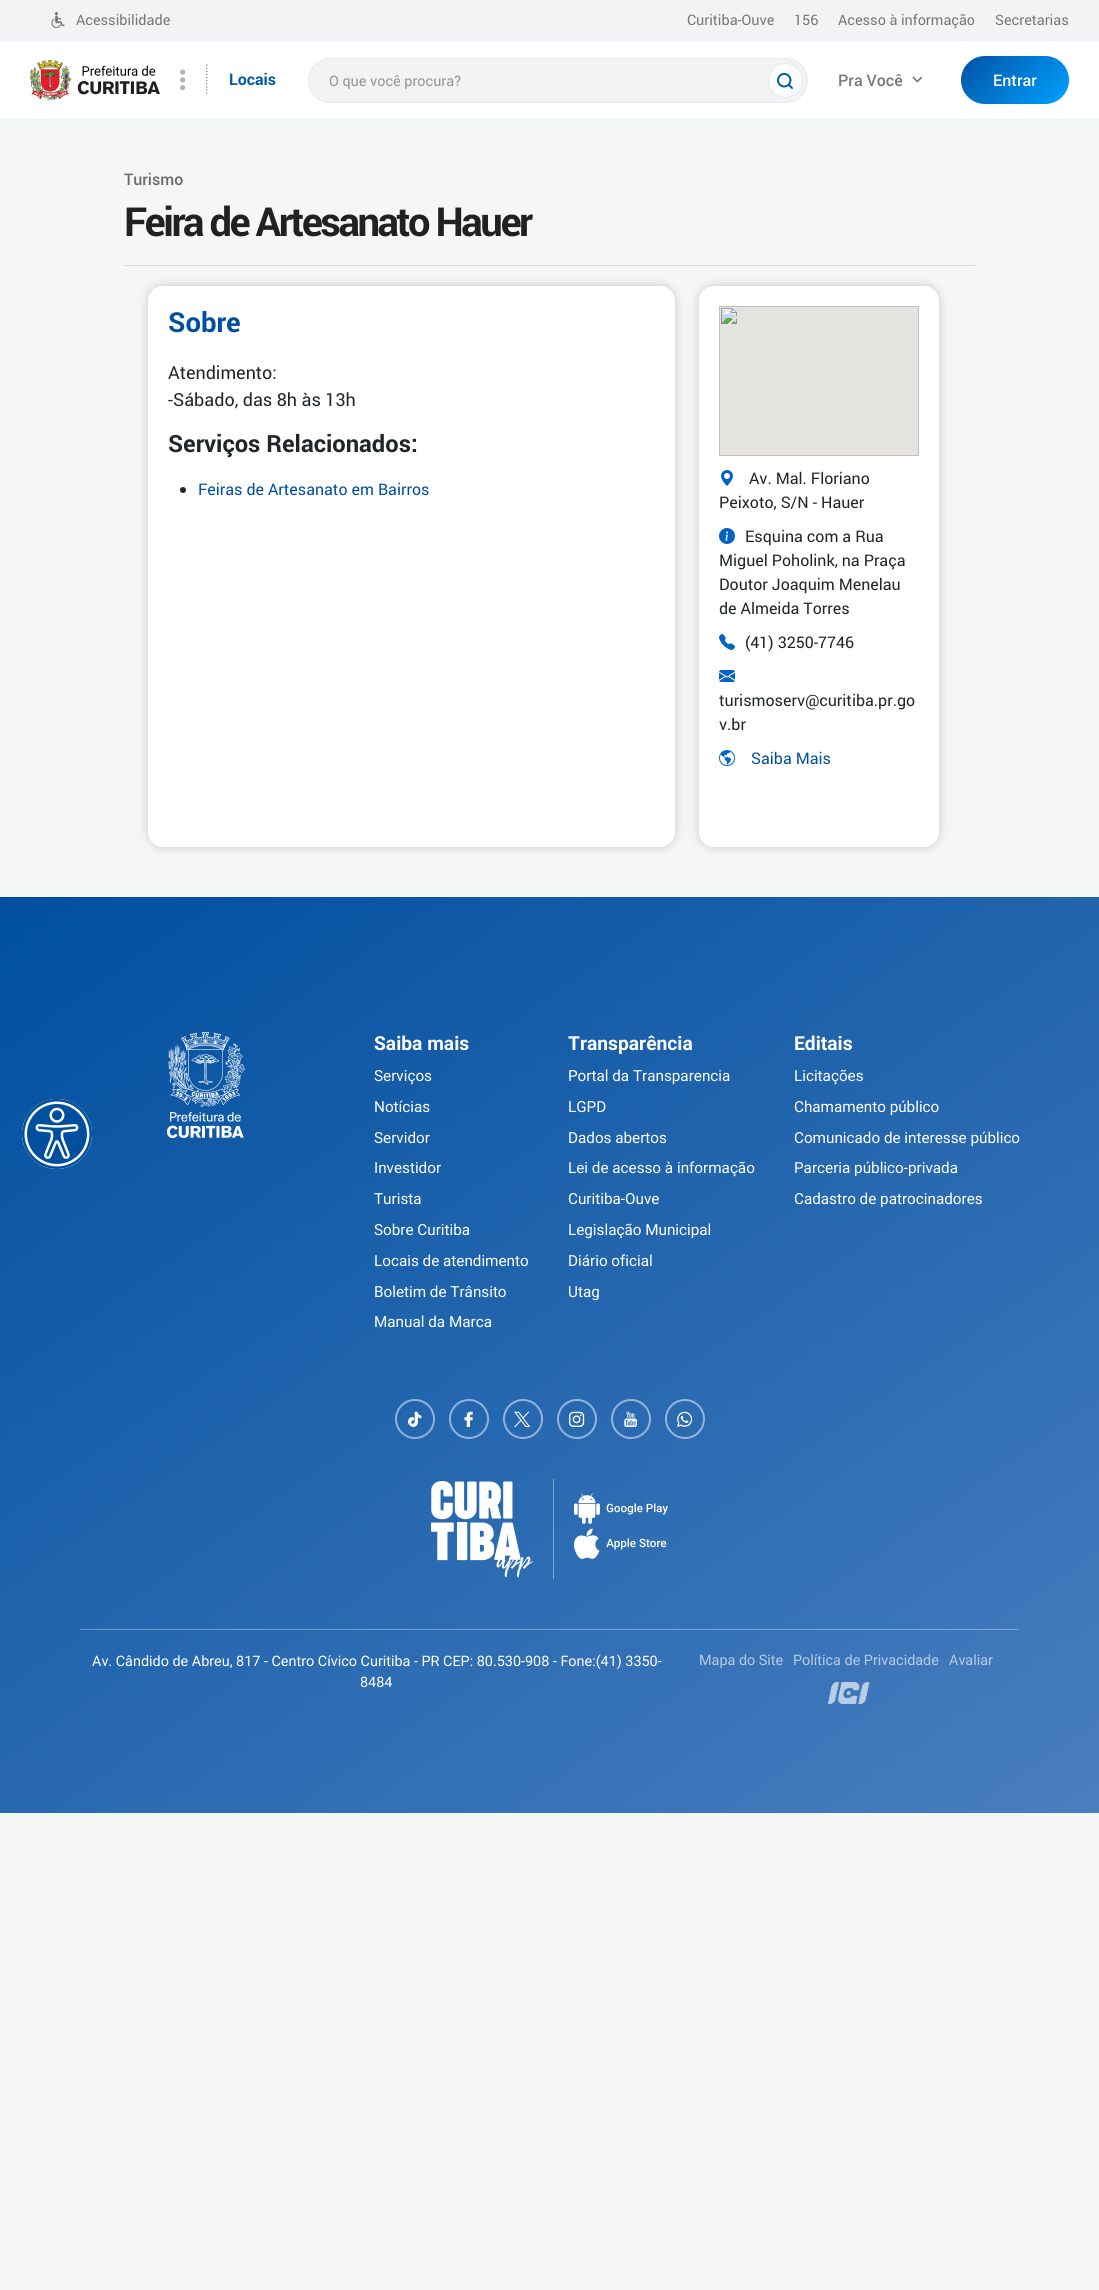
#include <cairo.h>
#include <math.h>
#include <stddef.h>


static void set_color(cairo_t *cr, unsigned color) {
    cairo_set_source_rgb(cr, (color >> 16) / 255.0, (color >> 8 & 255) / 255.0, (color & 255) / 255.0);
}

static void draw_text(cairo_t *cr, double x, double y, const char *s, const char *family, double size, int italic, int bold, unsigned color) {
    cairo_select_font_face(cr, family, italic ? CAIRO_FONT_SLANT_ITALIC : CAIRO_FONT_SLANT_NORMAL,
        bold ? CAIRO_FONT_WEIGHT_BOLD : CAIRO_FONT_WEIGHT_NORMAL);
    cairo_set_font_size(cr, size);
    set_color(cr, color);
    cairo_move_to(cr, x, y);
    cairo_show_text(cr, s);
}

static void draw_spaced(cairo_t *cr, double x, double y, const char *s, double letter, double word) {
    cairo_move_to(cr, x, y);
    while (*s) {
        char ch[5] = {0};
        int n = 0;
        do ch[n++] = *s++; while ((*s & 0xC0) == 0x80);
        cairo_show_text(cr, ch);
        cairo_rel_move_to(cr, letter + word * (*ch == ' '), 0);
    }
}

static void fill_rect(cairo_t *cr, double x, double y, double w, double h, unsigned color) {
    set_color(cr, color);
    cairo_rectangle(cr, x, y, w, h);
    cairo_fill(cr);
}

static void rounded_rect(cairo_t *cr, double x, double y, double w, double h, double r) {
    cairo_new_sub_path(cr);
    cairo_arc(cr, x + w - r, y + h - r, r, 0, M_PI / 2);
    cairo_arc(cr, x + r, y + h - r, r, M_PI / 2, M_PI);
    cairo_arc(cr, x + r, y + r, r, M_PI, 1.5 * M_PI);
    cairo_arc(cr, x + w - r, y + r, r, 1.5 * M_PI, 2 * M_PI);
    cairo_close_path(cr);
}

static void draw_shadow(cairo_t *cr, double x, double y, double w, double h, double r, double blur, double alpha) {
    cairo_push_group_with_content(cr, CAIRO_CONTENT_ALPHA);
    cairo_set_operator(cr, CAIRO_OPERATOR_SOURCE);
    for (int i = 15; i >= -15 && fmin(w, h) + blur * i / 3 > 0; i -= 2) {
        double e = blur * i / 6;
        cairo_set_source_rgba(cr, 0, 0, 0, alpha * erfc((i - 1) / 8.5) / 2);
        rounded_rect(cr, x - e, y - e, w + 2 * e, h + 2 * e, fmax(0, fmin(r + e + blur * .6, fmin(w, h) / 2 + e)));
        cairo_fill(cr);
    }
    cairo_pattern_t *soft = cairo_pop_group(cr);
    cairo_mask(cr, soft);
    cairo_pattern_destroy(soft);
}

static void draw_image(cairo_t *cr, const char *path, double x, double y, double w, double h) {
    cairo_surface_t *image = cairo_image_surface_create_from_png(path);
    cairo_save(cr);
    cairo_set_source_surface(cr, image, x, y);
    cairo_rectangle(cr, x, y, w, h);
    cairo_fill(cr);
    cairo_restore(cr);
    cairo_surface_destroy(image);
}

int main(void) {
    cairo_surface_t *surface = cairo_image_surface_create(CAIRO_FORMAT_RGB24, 1099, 2290);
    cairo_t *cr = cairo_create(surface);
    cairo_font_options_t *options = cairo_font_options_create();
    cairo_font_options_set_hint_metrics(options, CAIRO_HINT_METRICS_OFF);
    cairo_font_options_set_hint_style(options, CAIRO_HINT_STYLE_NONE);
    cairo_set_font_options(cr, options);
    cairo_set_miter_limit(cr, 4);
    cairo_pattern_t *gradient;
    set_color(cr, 0xF4F7F6);
    cairo_paint(cr);
    fill_rect(cr, 0, 0, 1099, 40, 0xF3F3F6);
    draw_image(cr, "assets/img1.png", 51, 12, 14, 16);
    draw_text(cr, 76, 25, "Acessibilidade", "Roboto", 14.4, 0, 0, 0x777777);
    draw_text(cr, 687, 25, "Curitiba-Ouve", "Roboto", 14.4, 0, 0, 0x777777);
    draw_text(cr, 794, 25, "156", "Roboto", 14.4, 0, 0, 0x777777);
    draw_text(cr, 838, 25, "Acesso à informação", "Roboto", 14.4, 0, 0, 0x777777);
    draw_text(cr, 995, 25, "Secretarias", "Roboto", 14.4, 0, 0, 0x777777);
    fill_rect(cr, 0, 41, 1099, 78, 0xFFFFFF);
    fill_rect(cr, 0, 40, 1099, 1, 0xF0F0F0);
    fill_rect(cr, 0, 119, 1099, 1, 0xF0F0F0);
    draw_image(cr, "assets/img2.png", 30, 60, 130, 40);
    draw_image(cr, "assets/img3.png", 180, 69, 6, 22);
    draw_image(cr, "assets/img4.png", 206, 64, 2, 30);
    draw_text(cr, 229, 85, "Locais", "Roboto", 16, 0, 1, 0x0459A6);
    set_color(cr, 0xF3F3F6);
    rounded_rect(cr, 308.5, 58.5, 499, 44, 22);
    cairo_fill_preserve(cr);
    set_color(cr, 0xE8E8E8);
    cairo_set_line_width(cr, 1);
    cairo_stroke(cr);
    draw_text(cr, 329, 86, "O que você procura?", "Roboto", 14.4, 0, 0, 0x949494);
    set_color(cr, 0xFCFCFC);
    cairo_new_path(cr);
    cairo_arc(cr, 785.5, 80.5, 17.5, 0, 2 * M_PI);
    cairo_fill(cr);
    cairo_arc(cr, 785.5, 80.5, 17, 0, 2 * M_PI);
    cairo_set_source_rgba(cr, 0.016, 0.349, 0.651, 0.1);
    cairo_stroke(cr);
    draw_image(cr, "assets/img5.png", 777, 73, 16, 16);
    draw_text(cr, 838, 86, "Pra Você", "Roboto Medium", 16, 0, 0, 0x777777);
    draw_image(cr, "assets/img6.png", 912, 76, 11, 7);
    gradient = cairo_pattern_create_linear(976, 41, 1054, 119);
    cairo_pattern_add_color_stop_rgba(gradient, 0, 0, 0.322, 0.647, 1);
    cairo_pattern_add_color_stop_rgba(gradient, 1, 0, 0.635, 1, 1);
    cairo_set_source(cr, gradient);
    cairo_pattern_destroy(gradient);
    rounded_rect(cr, 961, 56, 108, 48, 24);
    cairo_fill(cr);
    draw_text(cr, 993, 86, "Entrar", "Roboto Medium", 16, 0, 0, 0xFFFFFF);
    draw_text(cr, 124, 185, "Turismo", "Roboto Medium", 16, 0, 0, 0x6A6A6A);
    fill_rect(cr, 124, 265, 851, 1, 0xD8D8D8);
    cairo_select_font_face(cr, "Roboto", CAIRO_FONT_SLANT_NORMAL, CAIRO_FONT_WEIGHT_BOLD);
    cairo_set_font_size(cr, 40);
    set_color(cr, 0x202121);
    draw_spaced(cr, 124, 236, "Feira de Artesanato Hauer", -2.5, 0);
    set_color(cr, 0x000000);
    draw_shadow(cr, 148, 286, 527, 561, 15, 5, 0.2);
    set_color(cr, 0xFFFFFF);
    rounded_rect(cr, 148, 286, 527, 561, 15);
    cairo_fill(cr);
    draw_text(cr, 168, 332, "Sobre", "Roboto", 27.5, 0, 1, 0x004F9F);
    draw_text(cr, 168, 379, "Atendimento:", "Roboto", 18, 0, 0, 0x212529);
    draw_text(cr, 168, 406, "-Sábado, das 8h às 13h", "Roboto", 18, 0, 0, 0x212529);
    draw_text(cr, 168, 452, "Serviços Relacionados:", "Roboto", 23.75, 0, 1, 0x212529);
    cairo_new_path(cr);
    cairo_arc(cr, 183, 490, 3, 0, 2 * M_PI);
    cairo_fill(cr);
    draw_text(cr, 198, 495, "Feiras de Artesanato em Bairros", "Roboto", 16, 0, 0, 0x004F9F);
    set_color(cr, 0x000000);
    draw_shadow(cr, 699, 286, 240, 561, 15, 5, 0.2);
    set_color(cr, 0xFFFFFF);
    rounded_rect(cr, 699, 286, 240, 561, 15);
    cairo_fill(cr);
    draw_image(cr, "assets/img7.png", 719, 306, 200, 150);
    draw_image(cr, "assets/img8.png", 721, 470, 12, 16);
    draw_text(cr, 749, 484, "Av. Mal. Floriano", "Roboto", 16, 0, 0, 0x212529);
    draw_text(cr, 719, 508, "Peixoto, S/N - Hauer", "Roboto", 16, 0, 0, 0x212529);
    draw_image(cr, "assets/img9.png", 719, 528, 16, 16);
    draw_text(cr, 745, 542, "Esquina com a Rua", "Roboto", 16, 0, 0, 0x212529);
    draw_text(cr, 719, 566, "Miguel Poholink, na Praça", "Roboto", 16, 0, 0, 0x212529);
    draw_text(cr, 719, 590, "Doutor Joaquim Menelau", "Roboto", 16, 0, 0, 0x212529);
    draw_text(cr, 719, 614, "de Almeida Torres", "Roboto", 16, 0, 0, 0x212529);
    draw_image(cr, "assets/img10.png", 719, 634, 16, 16);
    draw_text(cr, 745, 648, "(41) 3250-7746", "Roboto", 16, 0, 0, 0x212529);
    draw_image(cr, "assets/img11.png", 719, 670, 16, 12);
    draw_text(cr, 719, 706, "turismoserv@curitiba.pr.go", "Roboto", 16, 0, 0, 0x212529);
    draw_text(cr, 719, 730, "v.br", "Roboto", 16, 0, 0, 0x212529);
    draw_image(cr, "assets/img12.png", 719, 750, 16, 16);
    draw_text(cr, 751, 764, "Saiba Mais", "Roboto", 16, 0, 0, 0x004F9F);
    gradient = cairo_pattern_create_linear(154, 789, 945, 1921);
    cairo_pattern_add_color_stop_rgba(gradient, 0, 0, 0.31, 0.624, 1);
    cairo_pattern_add_color_stop_rgba(gradient, 1, 0.286, 0.494, 0.749, 1);
    cairo_set_source(cr, gradient);
    cairo_pattern_destroy(gradient);
    cairo_rectangle(cr, 0, 897, 1099, 916);
    cairo_fill(cr);
    set_color(cr, 0xFFFFFF);
    cairo_arc(cr, 57, 1134, 35, 0, 2 * M_PI);
    cairo_fill(cr);
    draw_image(cr, "assets/img13.png", 22, 1099, 70, 70);
    gradient = cairo_pattern_create_linear(154, 789, 945, 1921);
    cairo_pattern_add_color_stop_rgba(gradient, 0, 0.349, 0.553, 0.757, 1);
    cairo_pattern_add_color_stop_rgba(gradient, 1, 0.537, 0.671, 0.835, 1);
    cairo_set_source(cr, gradient);
    cairo_pattern_destroy(gradient);
    cairo_rectangle(cr, 80, 1629, 939, 1);
    cairo_fill(cr);
    gradient = cairo_pattern_create_linear(154, 789, 945, 1921);
    cairo_pattern_add_color_stop_rgba(gradient, 0, 0.4, 0.584, 0.773, 1);
    cairo_pattern_add_color_stop_rgba(gradient, 1, 0.573, 0.698, 0.851, 1);
    cairo_set_source(cr, gradient);
    cairo_pattern_destroy(gradient);
    cairo_rectangle(cr, 553, 1479, 1, 100);
    cairo_fill(cr);
    draw_image(cr, "assets/img14.png", 167, 1032, 78, 106);
    draw_text(cr, 374, 1050, "Saiba mais", "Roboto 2", 19.25, 0, 1, 0xFFFFFF);
    draw_text(cr, 374, 1081, "Serviços", "Roboto 2", 15.25, 0, 0, 0xFFFFFF);
    draw_text(cr, 374, 1112, "Notícias", "Roboto 2", 15.25, 0, 0, 0xFFFFFF);
    draw_text(cr, 374, 1143, "Servidor", "Roboto 2", 15.25, 0, 0, 0xFFFFFF);
    draw_text(cr, 374, 1173, "Investidor", "Roboto 2", 15.25, 0, 0, 0xFFFFFF);
    draw_text(cr, 374, 1204, "Turista", "Roboto 2", 15.25, 0, 0, 0xFFFFFF);
    draw_text(cr, 374, 1235, "Sobre Curitiba", "Roboto 2", 15.25, 0, 0, 0xFFFFFF);
    draw_text(cr, 374, 1266, "Locais de atendimento", "Roboto 2", 15.25, 0, 0, 0xFFFFFF);
    draw_text(cr, 374, 1297, "Boletim de Trânsito", "Roboto 2", 15.25, 0, 0, 0xFFFFFF);
    draw_text(cr, 374, 1327, "Manual da Marca", "Roboto 2", 15.25, 0, 0, 0xFFFFFF);
    draw_text(cr, 568, 1050, "Transparência", "Roboto 2", 19.25, 0, 1, 0xFFFFFF);
    draw_text(cr, 568, 1081, "Portal da Transparencia", "Roboto 2", 15.25, 0, 0, 0xFFFFFF);
    draw_text(cr, 568, 1112, "LGPD", "Roboto 2", 15.25, 0, 0, 0xFFFFFF);
    draw_text(cr, 568, 1143, "Dados abertos", "Roboto 2", 15.25, 0, 0, 0xFFFFFF);
    draw_text(cr, 568, 1173, "Lei de acesso à informação", "Roboto 2", 15.25, 0, 0, 0xFFFFFF);
    draw_text(cr, 568, 1204, "Curitiba-Ouve", "Roboto 2", 15.25, 0, 0, 0xFFFFFF);
    draw_text(cr, 568, 1235, "Legislação Municipal", "Roboto 2", 15.25, 0, 0, 0xFFFFFF);
    draw_text(cr, 568, 1266, "Diário oficial", "Roboto 2", 15.25, 0, 0, 0xFFFFFF);
    draw_text(cr, 568, 1297, "Utag", "Roboto 2", 15.25, 0, 0, 0xFFFFFF);
    draw_text(cr, 794, 1050, "Editais", "Roboto 2", 19.25, 0, 1, 0xFFFFFF);
    draw_text(cr, 794, 1081, "Licitações", "Roboto 2", 15.25, 0, 0, 0xFFFFFF);
    draw_text(cr, 794, 1112, "Chamamento público", "Roboto 2", 15.25, 0, 0, 0xFFFFFF);
    draw_text(cr, 794, 1143, "Comunicado de interesse público", "Roboto 2", 15.25, 0, 0, 0xFFFFFF);
    draw_text(cr, 794, 1173, "Parceria público-privada", "Roboto 2", 15.25, 0, 0, 0xFFFFFF);
    draw_text(cr, 794, 1204, "Cadastro de patrocinadores", "Roboto 2", 15.25, 0, 0, 0xFFFFFF);
    cairo_new_path(cr);
    cairo_arc(cr, 415, 1419, 19, 0, 2 * M_PI);
    set_color(cr, 0x91B2D7);
    cairo_set_line_width(cr, 2);
    cairo_stroke(cr);
    draw_image(cr, "assets/img15.png", 408, 1411, 14, 16);
    cairo_arc(cr, 469, 1419, 19, 0, 2 * M_PI);
    set_color(cr, 0x92B3D7);
    cairo_stroke(cr);
    draw_image(cr, "assets/img16.png", 464, 1411, 9, 16);
    cairo_arc(cr, 523, 1419, 19, 0, 2 * M_PI);
    cairo_set_source_rgba(cr, 1, 1, 1, 0.5);
    cairo_stroke(cr);
    draw_image(cr, "assets/img17.png", 514, 1411, 17, 16);
    cairo_arc(cr, 577, 1419, 19, 0, 2 * M_PI);
    set_color(cr, 0x94B4D8);
    cairo_stroke(cr);
    draw_image(cr, "assets/img18.png", 569, 1411, 16, 16);
    cairo_arc(cr, 631, 1419, 19, 0, 2 * M_PI);
    cairo_stroke(cr);
    draw_image(cr, "assets/img19.png", 624, 1411, 13, 16);
    cairo_arc(cr, 685, 1419, 19, 0, 2 * M_PI);
    set_color(cr, 0x95B5D9);
    cairo_stroke(cr);
    draw_image(cr, "assets/img20.png", 677, 1411, 16, 16);
    draw_image(cr, "assets/img21.png", 431, 1481, 103, 97);
    draw_image(cr, "assets/img22.png", 574, 1493, 94, 31);
    draw_image(cr, "assets/img23.png", 574, 1528, 93, 31);
    draw_text(cr, 92, 1666, "Av. Cândido de Abreu, 817 - Centro Cívico Curitiba - PR CEP: 80.530-908 - Fone:(41) 3350-", "Roboto 2", 14.4, 0, 0, 0xFFFFFF);
    draw_text(cr, 360, 1687, "8484", "Roboto 2", 14.4, 0, 0, 0xFFFFFF);
    draw_text(cr, 699, 1665, "Mapa do Site", "Roboto 2", 14.4, 0, 0, 0xB7CCE5);
    draw_text(cr, 793, 1665, "Política de Privacidade", "Roboto 2", 14.4, 0, 0, 0xB7CCE5);
    draw_text(cr, 949, 1665, "Avaliar", "Roboto 2", 14.4, 0, 0, 0xB7CCE5);
    draw_image(cr, "assets/img24.png", 828, 1682, 42, 22);
    cairo_surface_write_to_png(surface, "output.png");
    cairo_font_options_destroy(options);
    cairo_destroy(cr);
    cairo_surface_destroy(surface);
    return 0;
}
